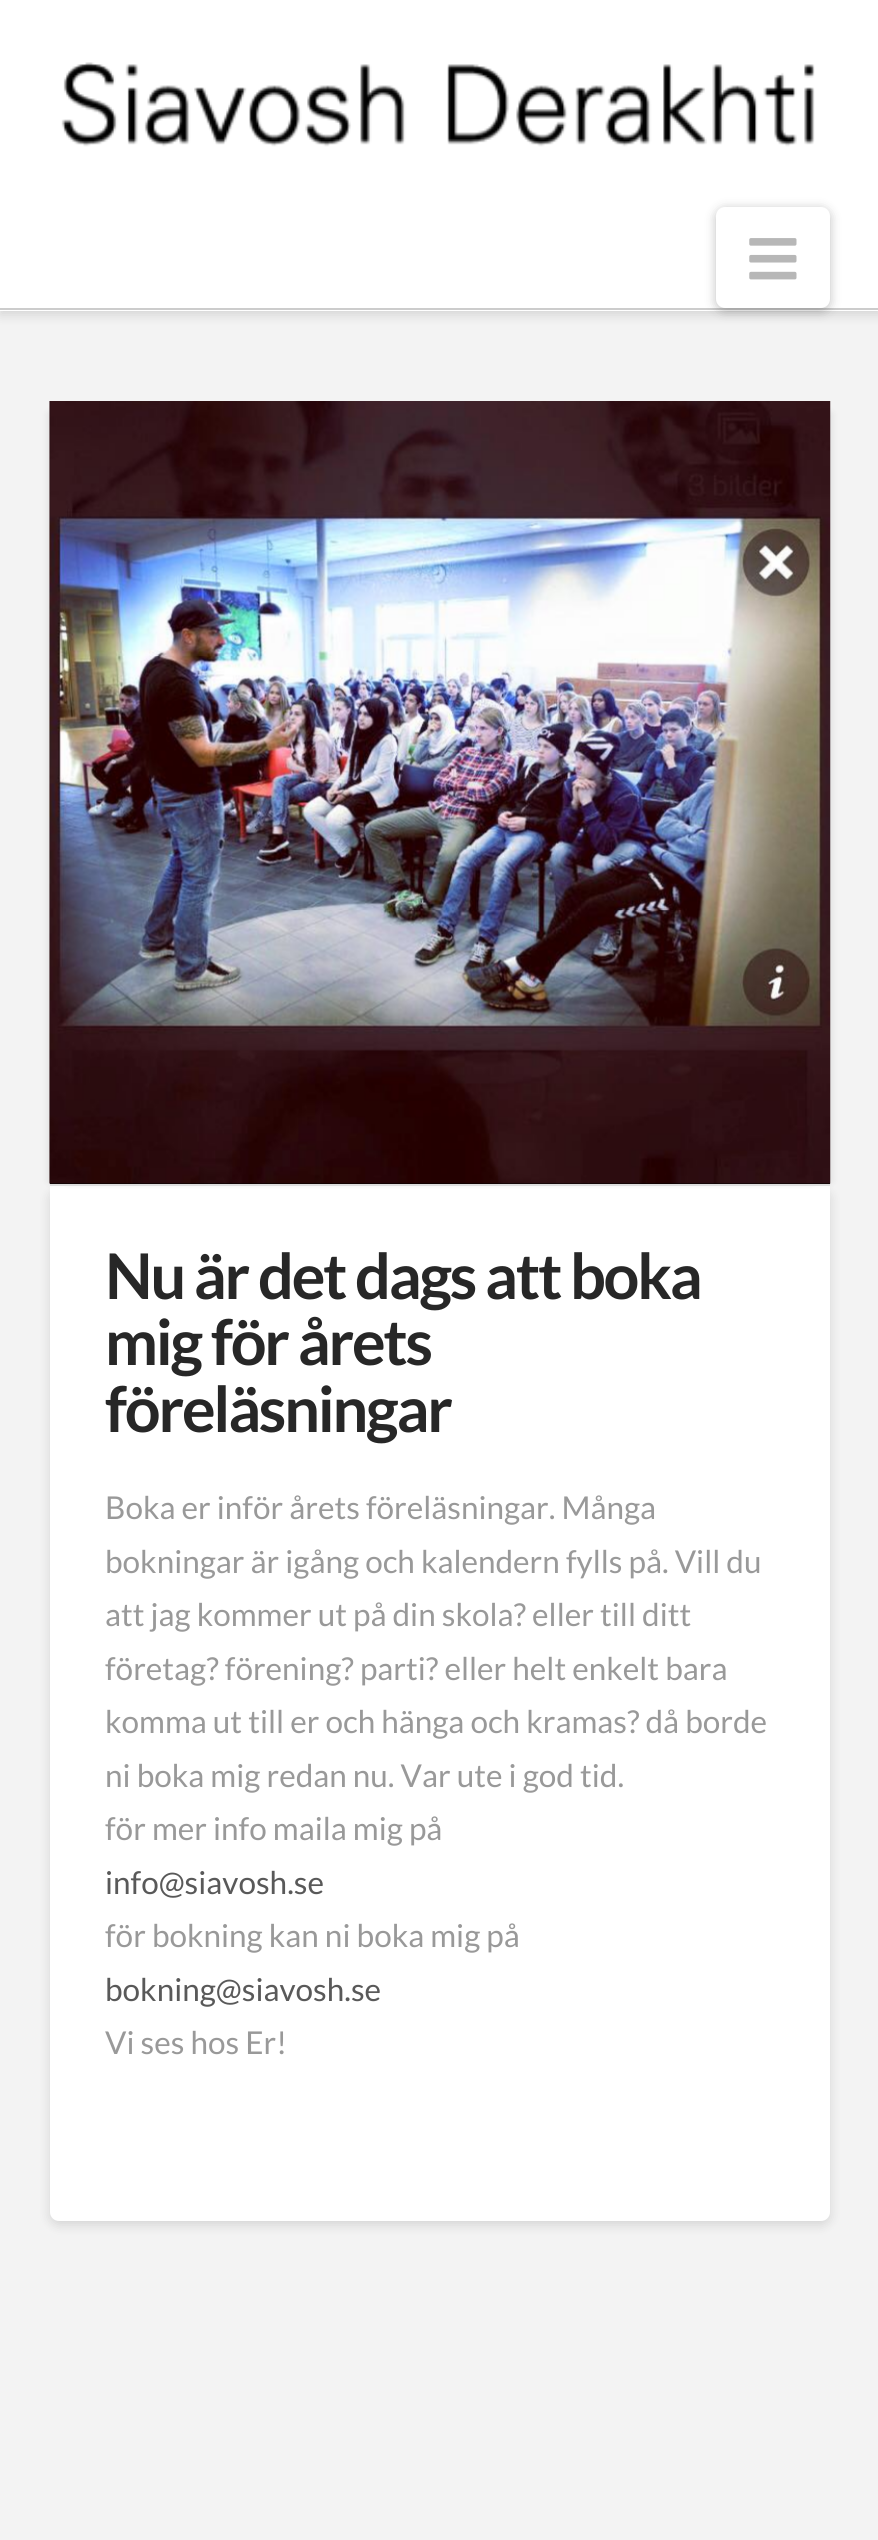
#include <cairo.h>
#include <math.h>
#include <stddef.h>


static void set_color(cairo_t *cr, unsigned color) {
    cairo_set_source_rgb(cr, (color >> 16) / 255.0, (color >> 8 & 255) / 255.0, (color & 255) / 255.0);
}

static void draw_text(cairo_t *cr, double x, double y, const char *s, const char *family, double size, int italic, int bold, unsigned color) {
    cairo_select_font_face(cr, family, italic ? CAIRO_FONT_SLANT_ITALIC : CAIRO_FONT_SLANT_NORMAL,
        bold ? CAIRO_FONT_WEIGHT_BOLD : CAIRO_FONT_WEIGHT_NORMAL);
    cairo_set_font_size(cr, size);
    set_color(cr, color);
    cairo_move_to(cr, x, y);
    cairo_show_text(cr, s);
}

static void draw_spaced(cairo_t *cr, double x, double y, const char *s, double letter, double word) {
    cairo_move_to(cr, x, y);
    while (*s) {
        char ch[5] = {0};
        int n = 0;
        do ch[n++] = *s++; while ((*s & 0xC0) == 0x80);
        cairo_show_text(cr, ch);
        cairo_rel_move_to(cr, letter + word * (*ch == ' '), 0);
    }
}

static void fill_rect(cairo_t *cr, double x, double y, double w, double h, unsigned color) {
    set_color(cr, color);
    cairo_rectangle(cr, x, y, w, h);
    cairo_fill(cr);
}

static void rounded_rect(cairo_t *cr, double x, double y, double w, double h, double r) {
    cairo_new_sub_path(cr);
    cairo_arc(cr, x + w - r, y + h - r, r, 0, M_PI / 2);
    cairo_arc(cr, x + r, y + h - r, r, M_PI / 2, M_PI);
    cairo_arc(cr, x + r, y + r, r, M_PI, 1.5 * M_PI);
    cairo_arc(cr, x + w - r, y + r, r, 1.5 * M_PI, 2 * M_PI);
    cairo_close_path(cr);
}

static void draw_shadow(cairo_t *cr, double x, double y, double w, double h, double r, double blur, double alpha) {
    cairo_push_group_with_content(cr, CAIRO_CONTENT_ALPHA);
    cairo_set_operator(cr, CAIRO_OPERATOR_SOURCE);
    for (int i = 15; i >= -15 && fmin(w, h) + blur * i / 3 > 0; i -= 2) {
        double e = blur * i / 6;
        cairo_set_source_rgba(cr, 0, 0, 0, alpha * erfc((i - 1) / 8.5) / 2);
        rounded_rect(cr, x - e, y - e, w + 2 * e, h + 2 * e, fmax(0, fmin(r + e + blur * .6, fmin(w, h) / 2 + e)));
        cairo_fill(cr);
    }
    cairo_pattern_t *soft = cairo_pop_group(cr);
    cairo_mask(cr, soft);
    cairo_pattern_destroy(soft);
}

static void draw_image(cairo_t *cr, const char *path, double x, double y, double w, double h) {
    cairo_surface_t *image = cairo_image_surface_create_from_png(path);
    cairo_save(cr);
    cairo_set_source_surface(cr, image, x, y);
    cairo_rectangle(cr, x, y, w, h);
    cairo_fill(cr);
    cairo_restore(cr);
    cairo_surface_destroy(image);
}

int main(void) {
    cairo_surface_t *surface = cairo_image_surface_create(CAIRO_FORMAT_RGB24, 878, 2540);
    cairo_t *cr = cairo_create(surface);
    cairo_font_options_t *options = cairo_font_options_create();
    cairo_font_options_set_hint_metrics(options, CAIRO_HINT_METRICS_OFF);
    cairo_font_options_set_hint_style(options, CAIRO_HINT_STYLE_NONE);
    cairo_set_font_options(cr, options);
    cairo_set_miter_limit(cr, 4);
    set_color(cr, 0xF3F3F3);
    cairo_paint(cr);
    set_color(cr, 0x000000);
    draw_shadow(cr, 0, 5, 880, 310, 0, 5.5, 0.13);
    fill_rect(cr, 0, 0, 878, 311, 0xFFFFFF);
    fill_rect(cr, 0, 308, 878, 2, 0xCCCCCC);
    draw_image(cr, "assets/img1.png", 61, 62, 754, 85);
    set_color(cr, 0x000000);
    draw_shadow(cr, 716, 209, 114, 102, 9, 5.5, 0.25);
    set_color(cr, 0xFFFFFF);
    rounded_rect(cr, 716, 207, 114, 101, 9);
    cairo_fill(cr);
    draw_image(cr, "assets/img2.png", 749, 238, 48, 42);
    set_color(cr, 0x000000);
    draw_shadow(cr, 50, 1190, 780, 1035, 9, 5.5, 0.13);
    set_color(cr, 0xFFFFFF);
    cairo_new_path(cr);
    cairo_move_to(cr, 50, 1186);
    cairo_line_to(cr, 830, 1186);
    cairo_line_to(cr, 830, 2212);
    cairo_curve_to(cr, 830, 2217, 826, 2221, 821, 2221);
    cairo_line_to(cr, 59, 2221);
    cairo_curve_to(cr, 54, 2221, 50, 2217, 50, 2212);
    cairo_close_path(cr);
    cairo_fill(cr);
    set_color(cr, 0x000000);
    draw_shadow(cr, 50, 414, 762, 767, 0, 4.5, 0.13);
    draw_shadow(cr, 68, 414, 762, 767, 0, 4.5, 0.13);
    fill_rect(cr, 50, 1184, 780, 2, 0xDDDDDD);
    fill_rect(cr, 50, 401, 780, 783, 0x000000);
    draw_image(cr, "assets/img3.png", 49, 401, 782, 783);
    cairo_select_font_face(cr, "Lato", CAIRO_FONT_SLANT_NORMAL, CAIRO_FONT_WEIGHT_BOLD);
    cairo_set_font_size(cr, 63);
    set_color(cr, 0x272727);
    draw_spaced(cr, 105, 1299, "Nu är det dags att boka", -2.25, 0);
    draw_spaced(cr, 105, 1365, "mig för årets", -2.25, 0);
    draw_spaced(cr, 105, 1432, "föreläsningar", -2.25, 0);
    draw_text(cr, 105, 1519, "Boka er inför årets föreläsningar. Många", "Lato", 31.5, 0, 0, 0x999999);
    draw_text(cr, 105, 1573, "bokningar är igång och kalendern fylls på. Vill du", "Lato", 31.5, 0, 0, 0x999999);
    draw_text(cr, 105, 1626, "att jag kommer ut på din skola? eller till ditt", "Lato", 31.5, 0, 0, 0x999999);
    draw_text(cr, 105, 1680, "företag? förening? parti? eller helt enkelt bara", "Lato", 31.5, 0, 0, 0x999999);
    draw_text(cr, 105, 1733, "komma ut till er och hänga och kramas? då borde", "Lato", 31.5, 0, 0, 0x999999);
    draw_text(cr, 105, 1787, "ni boka mig redan nu. Var ute i god tid.", "Lato", 31.5, 0, 0, 0x999999);
    draw_text(cr, 105, 1840, "för mer info maila mig på", "Lato", 31.5, 0, 0, 0x999999);
    draw_text(cr, 105, 1894, "info@siavosh.se", "Lato", 31.5, 0, 0, 0x595959);
    draw_text(cr, 105, 1947, "för bokning kan ni boka mig på", "Lato", 31.5, 0, 0, 0x999999);
    draw_text(cr, 105, 2001, "bokning@siavosh.se", "Lato", 31.5, 0, 0, 0x595959);
    draw_text(cr, 105, 2054, "Vi ses hos Er!", "Lato", 31.5, 0, 0, 0x999999);
    cairo_surface_write_to_png(surface, "output.png");
    cairo_font_options_destroy(options);
    cairo_destroy(cr);
    cairo_surface_destroy(surface);
    return 0;
}
